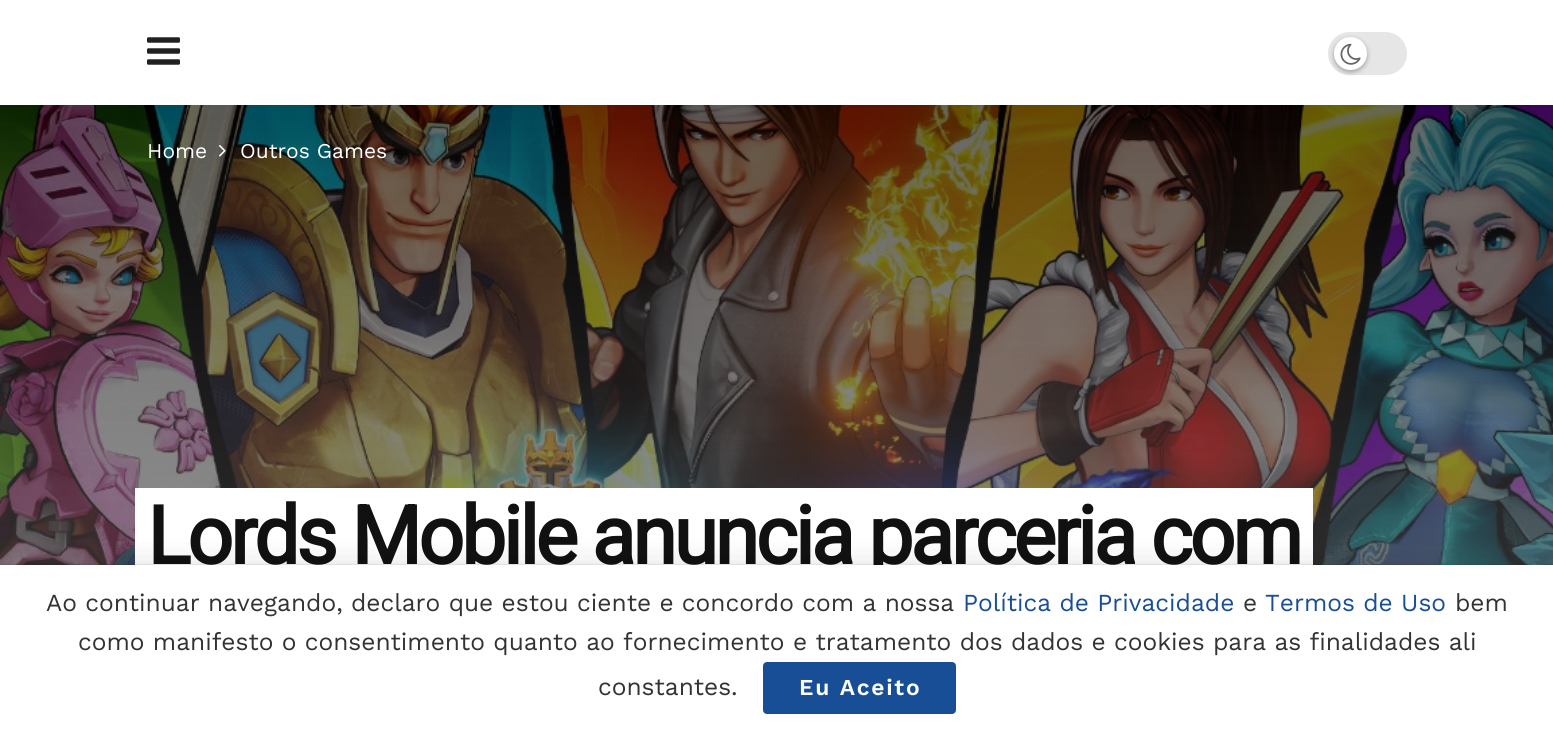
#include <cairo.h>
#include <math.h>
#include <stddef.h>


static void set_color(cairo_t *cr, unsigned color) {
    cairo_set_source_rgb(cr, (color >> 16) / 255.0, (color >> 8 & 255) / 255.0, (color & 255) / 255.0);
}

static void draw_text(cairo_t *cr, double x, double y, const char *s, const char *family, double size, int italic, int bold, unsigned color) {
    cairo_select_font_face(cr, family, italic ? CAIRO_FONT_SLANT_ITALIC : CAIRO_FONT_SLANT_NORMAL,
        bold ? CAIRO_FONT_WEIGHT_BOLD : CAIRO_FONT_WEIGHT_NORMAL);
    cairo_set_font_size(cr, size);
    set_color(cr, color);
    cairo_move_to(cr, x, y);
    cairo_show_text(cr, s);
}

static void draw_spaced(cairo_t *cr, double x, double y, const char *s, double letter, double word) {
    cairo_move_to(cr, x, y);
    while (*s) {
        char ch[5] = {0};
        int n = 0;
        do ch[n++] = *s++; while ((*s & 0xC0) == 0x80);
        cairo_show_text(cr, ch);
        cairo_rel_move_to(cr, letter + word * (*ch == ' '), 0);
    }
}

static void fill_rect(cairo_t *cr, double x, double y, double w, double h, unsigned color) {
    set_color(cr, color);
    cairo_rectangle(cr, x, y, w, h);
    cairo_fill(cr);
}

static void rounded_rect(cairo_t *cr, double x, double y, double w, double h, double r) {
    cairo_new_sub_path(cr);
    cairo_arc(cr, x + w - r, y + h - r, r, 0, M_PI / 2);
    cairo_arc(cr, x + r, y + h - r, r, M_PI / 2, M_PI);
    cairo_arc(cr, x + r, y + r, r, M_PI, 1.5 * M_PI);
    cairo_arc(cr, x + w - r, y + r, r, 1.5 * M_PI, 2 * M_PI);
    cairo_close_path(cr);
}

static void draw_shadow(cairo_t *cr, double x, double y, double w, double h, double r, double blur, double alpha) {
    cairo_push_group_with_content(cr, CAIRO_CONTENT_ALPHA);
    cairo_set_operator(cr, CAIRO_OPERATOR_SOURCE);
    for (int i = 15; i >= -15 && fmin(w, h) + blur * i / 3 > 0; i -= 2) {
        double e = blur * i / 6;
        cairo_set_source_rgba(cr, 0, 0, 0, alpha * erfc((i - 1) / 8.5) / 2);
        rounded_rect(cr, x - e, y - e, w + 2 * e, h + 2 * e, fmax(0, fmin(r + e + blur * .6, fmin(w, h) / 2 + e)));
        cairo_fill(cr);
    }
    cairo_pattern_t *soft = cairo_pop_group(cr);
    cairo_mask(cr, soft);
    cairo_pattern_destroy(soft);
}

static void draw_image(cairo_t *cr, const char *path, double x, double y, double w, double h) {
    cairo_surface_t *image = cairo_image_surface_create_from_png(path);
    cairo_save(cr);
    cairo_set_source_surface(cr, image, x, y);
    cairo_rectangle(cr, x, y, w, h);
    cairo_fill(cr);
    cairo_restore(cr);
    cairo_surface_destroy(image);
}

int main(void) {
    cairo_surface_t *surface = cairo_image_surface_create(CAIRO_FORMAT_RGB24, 1553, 731);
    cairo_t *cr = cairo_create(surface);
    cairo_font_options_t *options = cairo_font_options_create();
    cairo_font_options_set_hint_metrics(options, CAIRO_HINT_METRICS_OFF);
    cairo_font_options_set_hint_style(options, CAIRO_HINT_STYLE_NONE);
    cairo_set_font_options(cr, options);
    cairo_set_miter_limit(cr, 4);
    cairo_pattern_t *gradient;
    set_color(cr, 0xFFFFFF);
    cairo_paint(cr);
    draw_image(cr, "assets/img1.png", 147, 37, 33, 28);
    set_color(cr, 0xE6E6E6);
    rounded_rect(cr, 1328, 32, 79, 43, 21.5);
    cairo_fill(cr);
    set_color(cr, 0x000000);
    draw_shadow(cr, 1334, 39, 33, 33, 16.5, 2.5, 0.3);
    set_color(cr, 0xFFFFFF);
    cairo_arc(cr, 1350.5, 53.5, 16.5, 0, 2 * M_PI);
    cairo_fill(cr);
    draw_image(cr, "assets/img2.png", 1340, 43, 21, 22);
    gradient = cairo_pattern_create_linear(777, 105, 777, 630);
    cairo_pattern_add_color_stop_rgba(gradient, 0, 0, 0, 0, 1);
    cairo_pattern_add_color_stop_rgba(gradient, 1, 0.329, 0.329, 0.329, 1);
    cairo_set_source(cr, gradient);
    cairo_pattern_destroy(gradient);
    cairo_rectangle(cr, 0, 105, 1553, 460);
    cairo_fill(cr);
    draw_image(cr, "assets/img3.png", 0, 105, 1553, 460);
    draw_text(cr, 147, 158, "Home", "Work Sans", 21, 0, 0, 0xFFFFFF);
    draw_image(cr, "assets/img4.png", 218, 145, 8, 12);
    draw_text(cr, 240, 158, "Outros Games", "Work Sans", 21, 0, 0, 0xFFFFFF);
    fill_rect(cr, 147, 488, 1153, 77, 0xFFFFFF);
    cairo_select_font_face(cr, "Roboto", CAIRO_FONT_SLANT_NORMAL, CAIRO_FONT_WEIGHT_BOLD);
    cairo_set_font_size(cr, 80.5);
    set_color(cr, 0x111111);
    draw_spaced(cr, 147, 564, "Lords Mobile anuncia parceria com", -3.25, 0);
    set_color(cr, 0xFFFFFF);
    cairo_new_path(cr);
    cairo_move_to(cr, 135, 488);
    cairo_line_to(cr, 135, 583);
    cairo_line_to(cr, 1288, 583);
    cairo_line_to(cr, 147, 583);
    cairo_line_to(cr, 147, 488);
    cairo_line_to(cr, 1288, 488);
    cairo_close_path(cr);
    cairo_fill(cr);
    cairo_new_path(cr);
    cairo_move_to(cr, 159, 488);
    cairo_line_to(cr, 1300, 488);
    cairo_line_to(cr, 1300, 583);
    cairo_line_to(cr, 159, 583);
    cairo_line_to(cr, 1313, 583);
    cairo_line_to(cr, 1313, 488);
    cairo_close_path(cr);
    cairo_fill(cr);
    set_color(cr, 0x000000);
    draw_shadow(cr, 0, 569, 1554, 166, 0, 17.5, 0.15);
    draw_shadow(cr, 0, 565, 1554, 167, 0, 1, 0.2);
    fill_rect(cr, 0, 565, 1553, 166, 0xFFFFFF);
    draw_text(cr, 46, 611, "Ao continuar navegando, declaro que estou ciente e concordo com a nossa", "Work Sans", 24.5, 0, 0, 0x333333);
    draw_text(cr, 963, 611, "Política de Privacidade", "Work Sans", 24.5, 0, 0, 0x174E96);
    draw_text(cr, 1243, 611, "e", "Work Sans", 24.5, 0, 0, 0x333333);
    draw_text(cr, 1265, 611, "Termos de Uso", "Work Sans", 24.5, 0, 0, 0x174E96);
    draw_text(cr, 1455, 611, "bem", "Work Sans", 24.5, 0, 0, 0x333333);
    draw_text(cr, 78, 650, "como manifesto o consentimento quanto ao fornecimento e tratamento dos dados e cookies para as finalidades ali", "Work Sans", 24.5, 0, 0, 0x333333);
    draw_text(cr, 598, 695, "constantes.", "Work Sans", 24.5, 0, 0, 0x333333);
    set_color(cr, 0x174E96);
    rounded_rect(cr, 763, 662, 193, 52, 4);
    cairo_fill(cr);
    cairo_select_font_face(cr, "Work Sans SemiBold", CAIRO_FONT_SLANT_NORMAL, CAIRO_FONT_WEIGHT_NORMAL);
    cairo_set_font_size(cr, 22.75);
    set_color(cr, 0xFFFFFF);
    draw_spaced(cr, 799, 695, "Eu Aceito", 1.75, 0);
    cairo_surface_write_to_png(surface, "output.png");
    cairo_font_options_destroy(options);
    cairo_destroy(cr);
    cairo_surface_destroy(surface);
    return 0;
}
